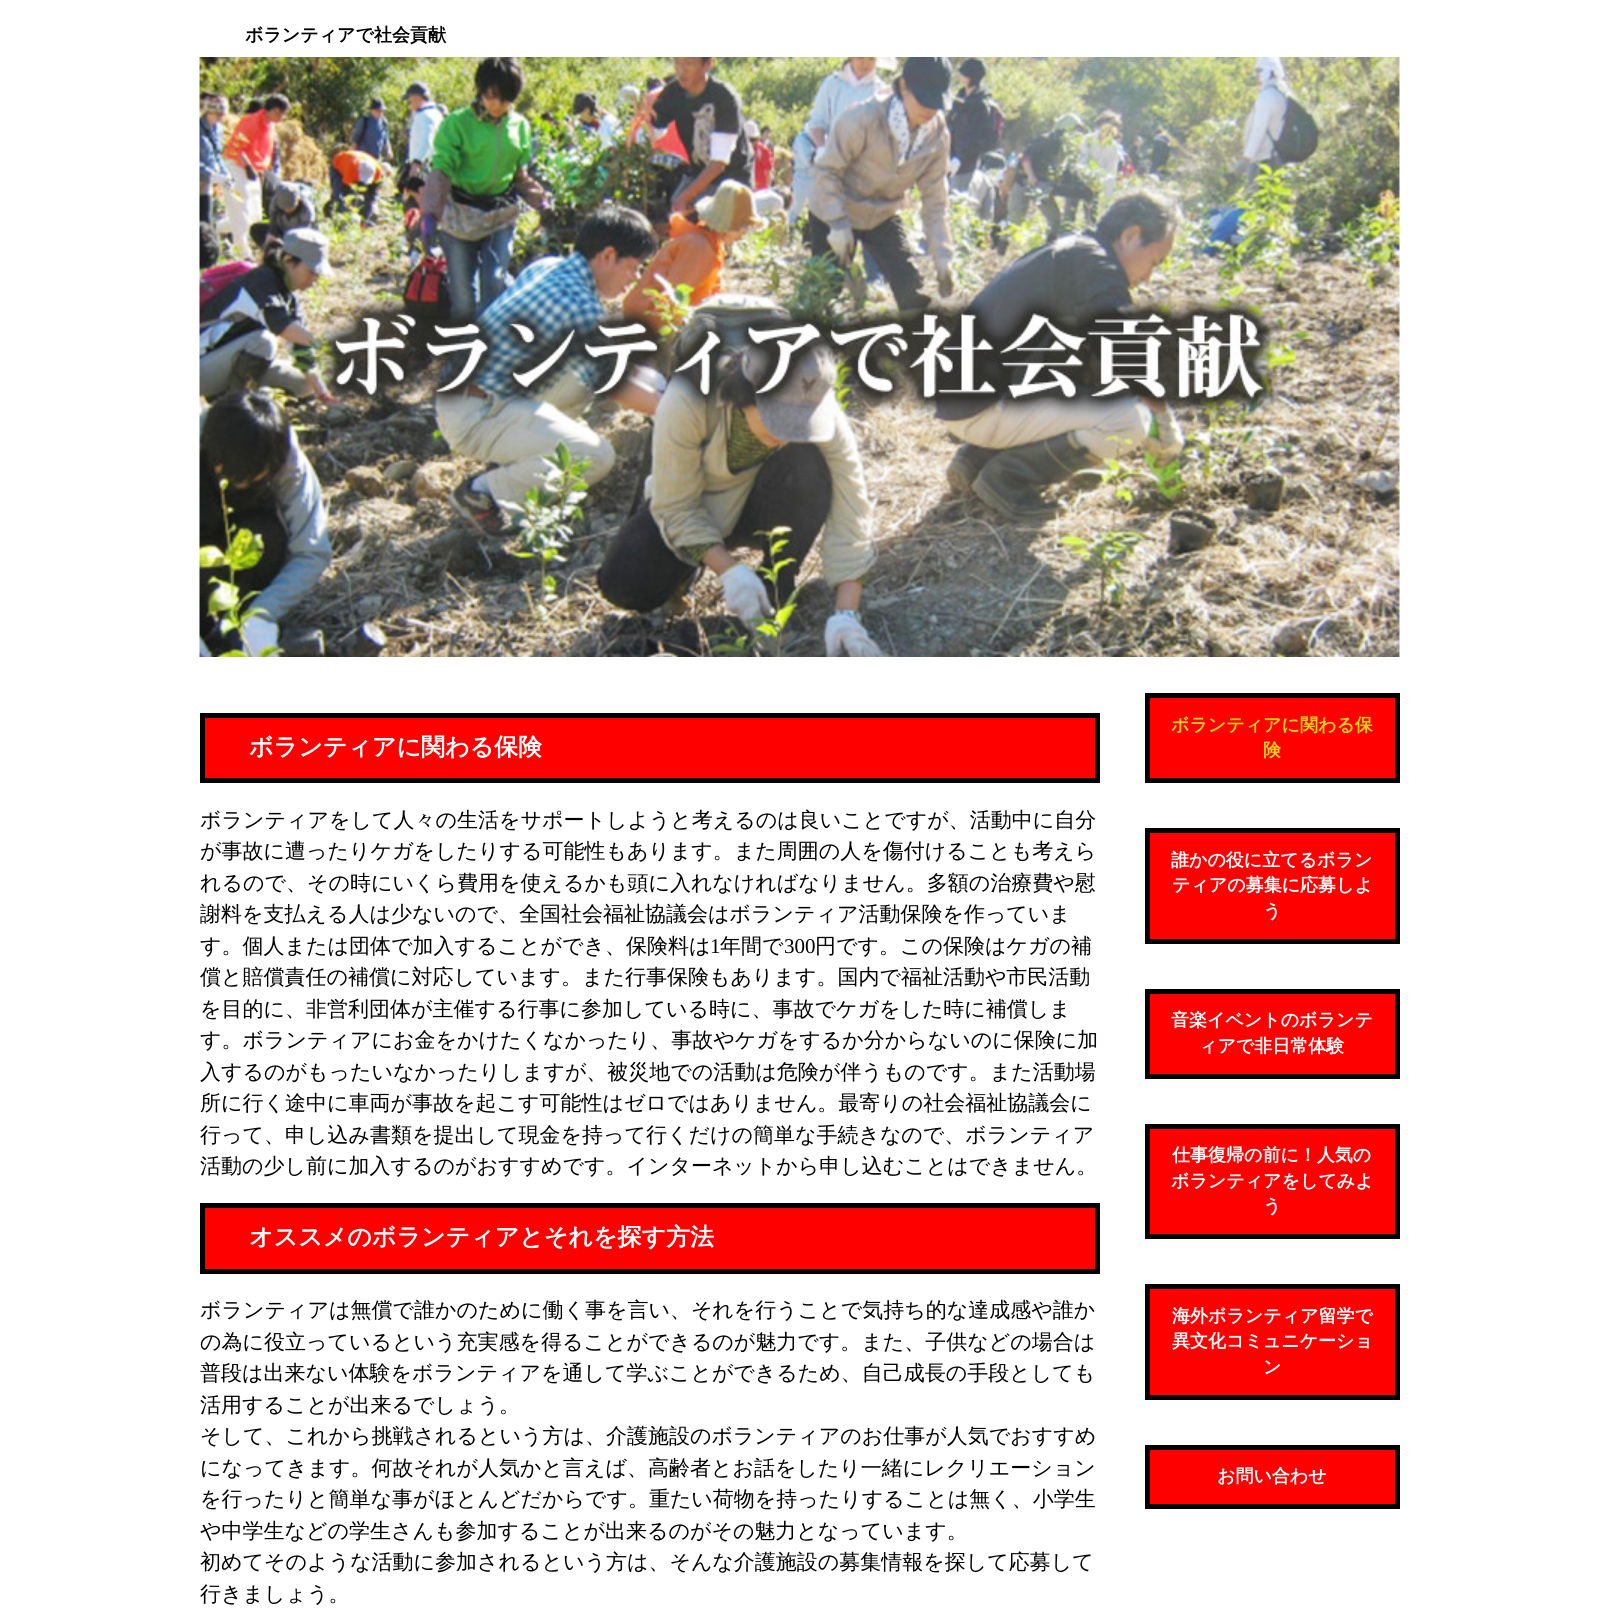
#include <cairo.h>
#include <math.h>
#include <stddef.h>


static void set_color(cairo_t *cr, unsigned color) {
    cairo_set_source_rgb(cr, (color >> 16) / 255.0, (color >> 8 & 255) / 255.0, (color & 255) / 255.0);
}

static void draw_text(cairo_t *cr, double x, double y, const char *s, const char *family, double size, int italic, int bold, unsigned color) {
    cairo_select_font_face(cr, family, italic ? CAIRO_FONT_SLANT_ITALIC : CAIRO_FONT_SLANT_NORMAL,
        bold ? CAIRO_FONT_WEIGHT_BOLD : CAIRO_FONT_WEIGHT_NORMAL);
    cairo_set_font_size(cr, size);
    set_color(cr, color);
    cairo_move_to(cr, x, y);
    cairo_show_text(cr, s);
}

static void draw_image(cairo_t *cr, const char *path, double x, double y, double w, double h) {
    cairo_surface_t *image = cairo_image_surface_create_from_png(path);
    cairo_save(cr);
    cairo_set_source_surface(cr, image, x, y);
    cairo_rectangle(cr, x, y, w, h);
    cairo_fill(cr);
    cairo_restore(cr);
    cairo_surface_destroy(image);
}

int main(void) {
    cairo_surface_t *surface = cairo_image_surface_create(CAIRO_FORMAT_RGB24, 1598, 1616);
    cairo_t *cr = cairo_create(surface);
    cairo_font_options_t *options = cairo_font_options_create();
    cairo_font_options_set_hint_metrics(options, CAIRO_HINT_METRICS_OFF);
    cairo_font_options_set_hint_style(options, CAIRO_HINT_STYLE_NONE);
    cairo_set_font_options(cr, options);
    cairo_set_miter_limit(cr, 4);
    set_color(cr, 0xFFFFFF);
    cairo_paint(cr);
    draw_text(cr, 245, 41, "ボランティアで社会貢献", "WenQuanYi Zen Hei", 18, 0, 1, 0x000000);
    draw_image(cr, "assets/img1.png", 199, 57, 1201, 600);
    set_color(cr, 0xFF0000);
    cairo_rectangle(cr, 202.5, 715.5, 895, 65);
    cairo_fill_preserve(cr);
    set_color(cr, 0x000000);
    cairo_set_line_width(cr, 5);
    cairo_stroke(cr);
    draw_text(cr, 249, 755, "ボランティアに関わる保険", "WenQuanYi Zen Hei", 24, 0, 1, 0xFFFFFF);
    draw_text(cr, 200, 827, "ボランティアをして人々の生活をサポートしようと考えるのは良いことですが、活動中に自分", "WenQuanYi Zen Hei Medium", 21, 0, 0, 0x000000);
    draw_text(cr, 200, 858, "が事故に遭ったりケガをしたりする可能性もあります。また周囲の人を傷付けることも考えら", "WenQuanYi Zen Hei Medium", 21, 0, 0, 0x000000);
    draw_text(cr, 200, 890, "れるので、その時にいくら費用を使えるかも頭に入れなければなりません。多額の治療費や慰", "WenQuanYi Zen Hei Medium", 21, 0, 0, 0x000000);
    draw_text(cr, 200, 921, "謝料を支払える人は少ないので、全国社会福祉協議会はボランティア活動保険を作っていま", "WenQuanYi Zen Hei Medium", 21, 0, 0, 0x000000);
    draw_text(cr, 200, 953, "す。個人または団体で加入することができ、保険料は", "WenQuanYi Zen Hei Medium", 21, 0, 0, 0x000000);
    draw_text(cr, 710, 953, "1", "Liberation Serif", 21, 0, 0, 0x000000);
    draw_text(cr, 720, 953, "年間で", "WenQuanYi Zen Hei Medium", 21, 0, 0, 0x000000);
    draw_text(cr, 784, 953, "300", "Liberation Serif", 21, 0, 0, 0x000000);
    draw_text(cr, 815, 953, "円です。この保険はケガの補", "WenQuanYi Zen Hei Medium", 21, 0, 0, 0x000000);
    draw_text(cr, 200, 984, "償と賠償責任の補償に対応しています。また行事保険もあります。国内で福祉活動や市民活動", "WenQuanYi Zen Hei Medium", 21, 0, 0, 0x000000);
    draw_text(cr, 200, 1016, "を目的に、非営利団体が主催する行事に参加している時に、事故でケガをした時に補償しま", "WenQuanYi Zen Hei Medium", 21, 0, 0, 0x000000);
    draw_text(cr, 200, 1047, "す。ボランティアにお金をかけたくなかったり、事故やケガをするか分からないのに保険に加", "WenQuanYi Zen Hei Medium", 21, 0, 0, 0x000000);
    draw_text(cr, 200, 1079, "入するのがもったいなかったりしますが、被災地での活動は危険が伴うものです。また活動場", "WenQuanYi Zen Hei Medium", 21, 0, 0, 0x000000);
    draw_text(cr, 200, 1110, "所に行く途中に車両が事故を起こす可能性はゼロではありません。最寄りの社会福祉協議会に", "WenQuanYi Zen Hei Medium", 21, 0, 0, 0x000000);
    draw_text(cr, 200, 1142, "行って、申し込み書類を提出して現金を持って行くだけの簡単な手続きなので、ボランティア", "WenQuanYi Zen Hei Medium", 21, 0, 0, 0x000000);
    draw_text(cr, 200, 1173, "活動の少し前に加入するのがおすすめです。インターネットから申し込むことはできません。", "WenQuanYi Zen Hei Medium", 21, 0, 0, 0x000000);
    set_color(cr, 0xFF0000);
    cairo_rectangle(cr, 202.5, 1205.5, 895, 66);
    cairo_fill_preserve(cr);
    set_color(cr, 0x000000);
    cairo_stroke(cr);
    draw_text(cr, 249, 1245, "オススメのボランティアとそれを探す方法", "WenQuanYi Zen Hei", 24, 0, 1, 0xFFFFFF);
    draw_text(cr, 200, 1317, "ボランティアは無償で誰かのために働く事を言い、それを行うことで気持ち的な達成感や誰か", "WenQuanYi Zen Hei Medium", 21, 0, 0, 0x000000);
    draw_text(cr, 200, 1349, "の為に役立っているという充実感を得ることができるのが魅力です。また、子供などの場合は", "WenQuanYi Zen Hei Medium", 21, 0, 0, 0x000000);
    draw_text(cr, 200, 1380, "普段は出来ない体験をボランティアを通して学ぶことができるため、自己成長の手段としても", "WenQuanYi Zen Hei Medium", 21, 0, 0, 0x000000);
    draw_text(cr, 200, 1412, "活用することが出来るでしょう。", "WenQuanYi Zen Hei Medium", 21, 0, 0, 0x000000);
    draw_text(cr, 200, 1443, "そして、これから挑戦されるという方は、介護施設のボランティアのお仕事が人気でおすすめ", "WenQuanYi Zen Hei Medium", 21, 0, 0, 0x000000);
    draw_text(cr, 200, 1475, "になってきます。何故それが人気かと言えば、高齢者とお話をしたり一緒にレクリエーション", "WenQuanYi Zen Hei Medium", 21, 0, 0, 0x000000);
    draw_text(cr, 200, 1506, "を行ったりと簡単な事がほとんどだからです。重たい荷物を持ったりすることは無く、小学生", "WenQuanYi Zen Hei Medium", 21, 0, 0, 0x000000);
    draw_text(cr, 200, 1538, "や中学生などの学生さんも参加することが出来るのがその魅力となっています。", "WenQuanYi Zen Hei Medium", 21, 0, 0, 0x000000);
    draw_text(cr, 200, 1569, "初めてそのような活動に参加されるという方は、そんな介護施設の募集情報を探して応募して", "WenQuanYi Zen Hei Medium", 21, 0, 0, 0x000000);
    draw_text(cr, 200, 1601, "行きましょう。", "WenQuanYi Zen Hei Medium", 21, 0, 0, 0x000000);
    set_color(cr, 0xFF0000);
    cairo_rectangle(cr, 1147.5, 695.5, 250, 85);
    cairo_fill_preserve(cr);
    set_color(cr, 0x000000);
    cairo_stroke(cr);
    draw_text(cr, 1171, 731, "ボランティアに関わる保", "WenQuanYi Zen Hei", 18, 0, 1, 0xEBD614);
    draw_text(cr, 1263, 756, "険", "WenQuanYi Zen Hei", 18, 0, 1, 0xEBD614);
    set_color(cr, 0xFF0000);
    cairo_rectangle(cr, 1147.5, 830.5, 250, 111);
    cairo_fill_preserve(cr);
    set_color(cr, 0x000000);
    cairo_stroke(cr);
    draw_text(cr, 1171, 866, "誰かの役に立てるボラン", "WenQuanYi Zen Hei", 18, 0, 1, 0xFFFFFF);
    draw_text(cr, 1172, 891, "ティアの募集に応募しよ", "WenQuanYi Zen Hei", 18, 0, 1, 0xFFFFFF);
    draw_text(cr, 1263, 917, "う", "WenQuanYi Zen Hei", 18, 0, 1, 0xFFFFFF);
    set_color(cr, 0xFF0000);
    cairo_rectangle(cr, 1147.5, 991.5, 250, 85);
    cairo_fill_preserve(cr);
    set_color(cr, 0x000000);
    cairo_stroke(cr);
    draw_text(cr, 1171, 1026, "音楽イベントのボランテ", "WenQuanYi Zen Hei", 18, 0, 1, 0xFFFFFF);
    draw_text(cr, 1199, 1052, "ィアで非日常体験", "WenQuanYi Zen Hei", 18, 0, 1, 0xFFFFFF);
    set_color(cr, 0xFF0000);
    cairo_rectangle(cr, 1147.5, 1126.5, 250, 110);
    cairo_fill_preserve(cr);
    set_color(cr, 0x000000);
    cairo_stroke(cr);
    draw_text(cr, 1172, 1161, "仕事復帰の前に！人気の", "WenQuanYi Zen Hei", 18, 0, 1, 0xFFFFFF);
    draw_text(cr, 1171, 1187, "ボランティアをしてみよ", "WenQuanYi Zen Hei", 18, 0, 1, 0xFFFFFF);
    draw_text(cr, 1263, 1212, "う", "WenQuanYi Zen Hei", 18, 0, 1, 0xFFFFFF);
    set_color(cr, 0xFF0000);
    cairo_rectangle(cr, 1147.5, 1286.5, 250, 111);
    cairo_fill_preserve(cr);
    set_color(cr, 0x000000);
    cairo_stroke(cr);
    draw_text(cr, 1172, 1322, "海外ボランティア留学で", "WenQuanYi Zen Hei", 18, 0, 1, 0xFFFFFF);
    draw_text(cr, 1172, 1347, "異文化コミュニケーショ", "WenQuanYi Zen Hei", 18, 0, 1, 0xFFFFFF);
    draw_text(cr, 1263, 1373, "ン", "WenQuanYi Zen Hei", 18, 0, 1, 0xFFFFFF);
    set_color(cr, 0xFF0000);
    cairo_rectangle(cr, 1147.5, 1447.5, 250, 59);
    cairo_fill_preserve(cr);
    set_color(cr, 0x000000);
    cairo_stroke(cr);
    draw_text(cr, 1217, 1482, "お問い合わせ", "WenQuanYi Zen Hei", 18, 0, 1, 0xFFFFFF);
    cairo_surface_write_to_png(surface, "output.png");
    cairo_font_options_destroy(options);
    cairo_destroy(cr);
    cairo_surface_destroy(surface);
    return 0;
}
